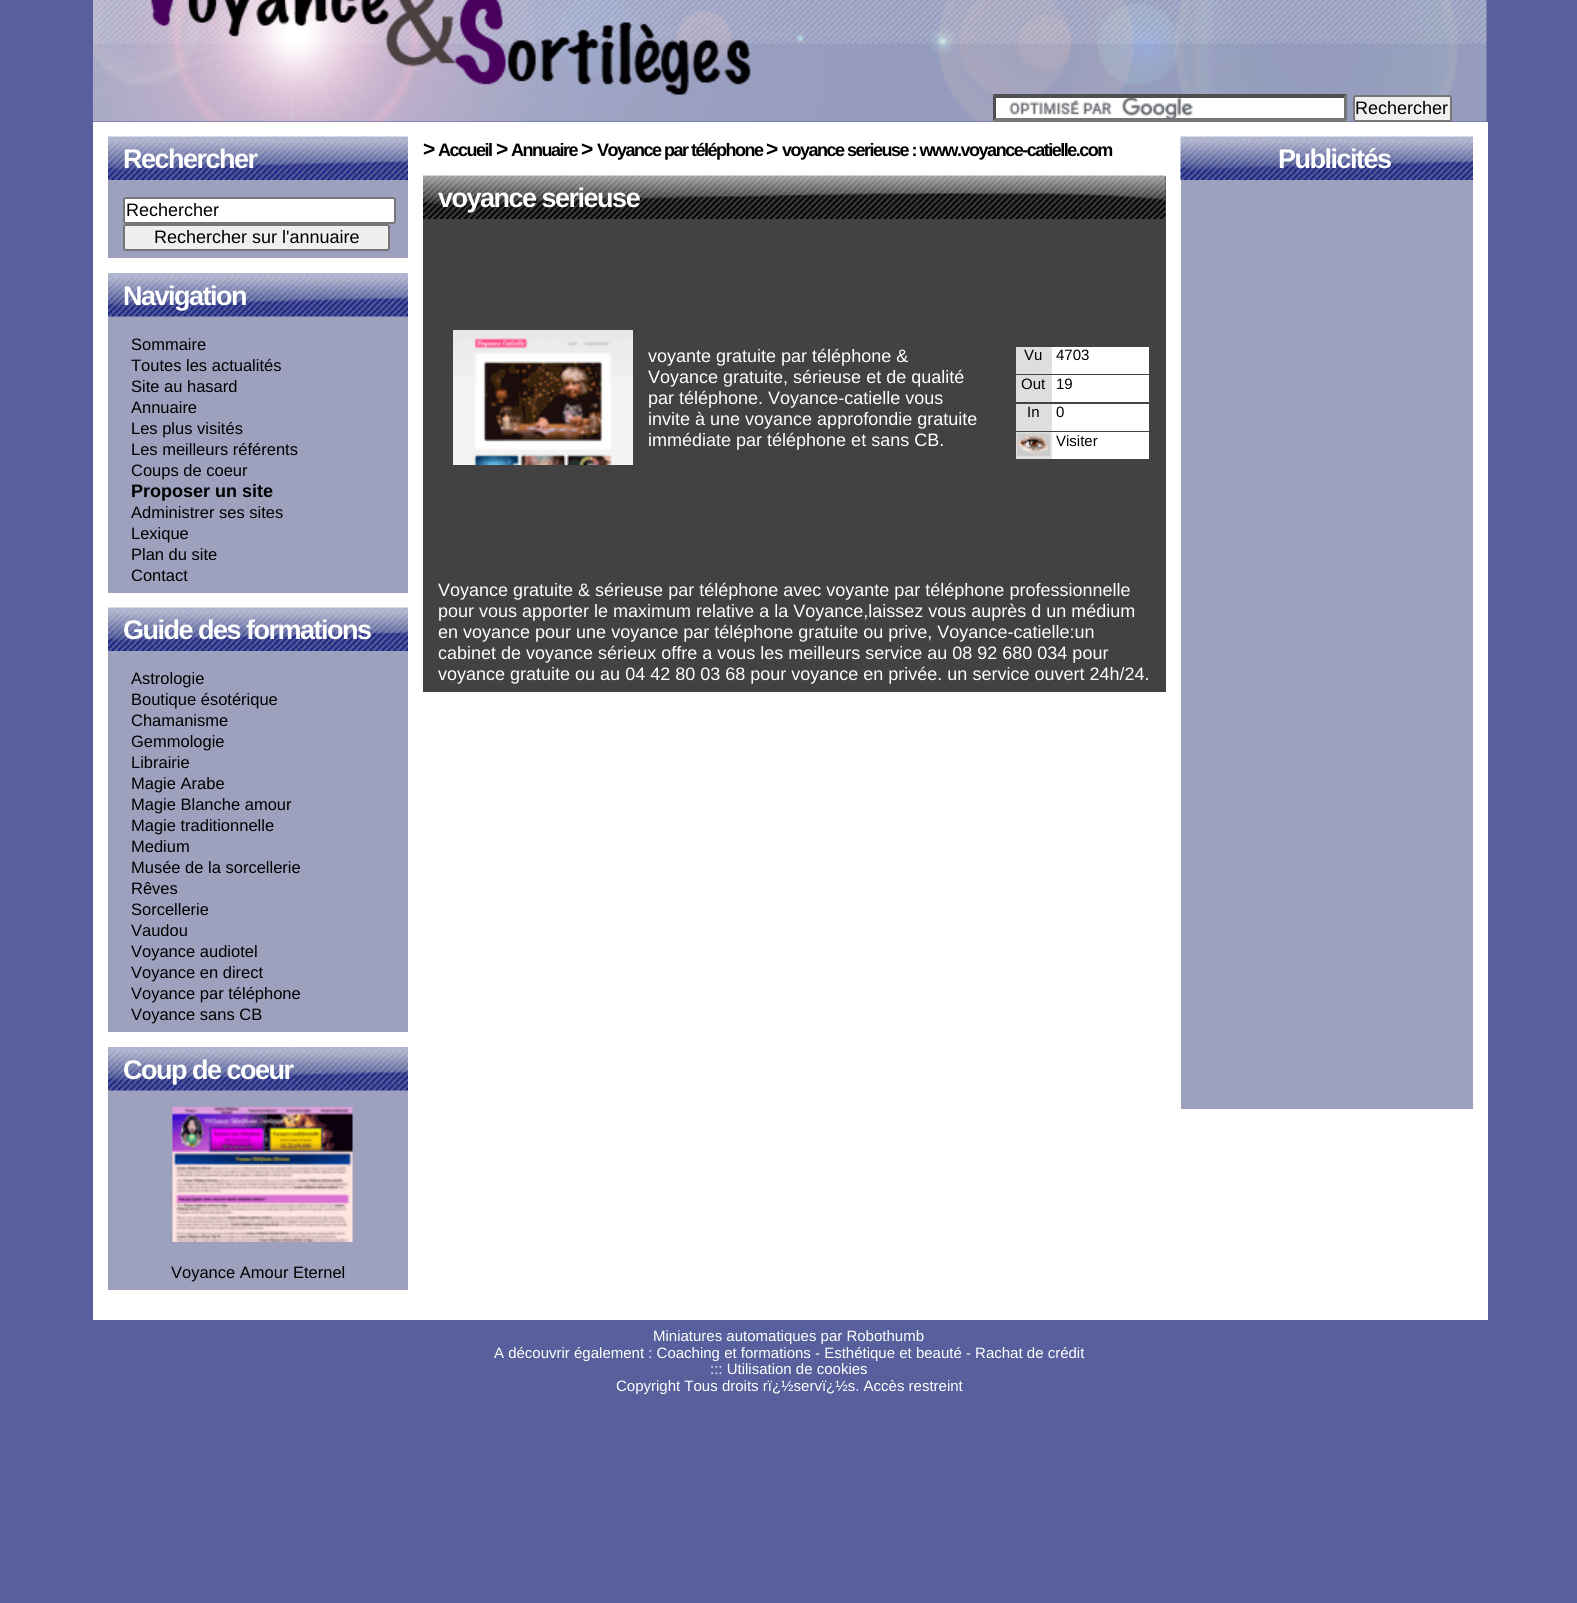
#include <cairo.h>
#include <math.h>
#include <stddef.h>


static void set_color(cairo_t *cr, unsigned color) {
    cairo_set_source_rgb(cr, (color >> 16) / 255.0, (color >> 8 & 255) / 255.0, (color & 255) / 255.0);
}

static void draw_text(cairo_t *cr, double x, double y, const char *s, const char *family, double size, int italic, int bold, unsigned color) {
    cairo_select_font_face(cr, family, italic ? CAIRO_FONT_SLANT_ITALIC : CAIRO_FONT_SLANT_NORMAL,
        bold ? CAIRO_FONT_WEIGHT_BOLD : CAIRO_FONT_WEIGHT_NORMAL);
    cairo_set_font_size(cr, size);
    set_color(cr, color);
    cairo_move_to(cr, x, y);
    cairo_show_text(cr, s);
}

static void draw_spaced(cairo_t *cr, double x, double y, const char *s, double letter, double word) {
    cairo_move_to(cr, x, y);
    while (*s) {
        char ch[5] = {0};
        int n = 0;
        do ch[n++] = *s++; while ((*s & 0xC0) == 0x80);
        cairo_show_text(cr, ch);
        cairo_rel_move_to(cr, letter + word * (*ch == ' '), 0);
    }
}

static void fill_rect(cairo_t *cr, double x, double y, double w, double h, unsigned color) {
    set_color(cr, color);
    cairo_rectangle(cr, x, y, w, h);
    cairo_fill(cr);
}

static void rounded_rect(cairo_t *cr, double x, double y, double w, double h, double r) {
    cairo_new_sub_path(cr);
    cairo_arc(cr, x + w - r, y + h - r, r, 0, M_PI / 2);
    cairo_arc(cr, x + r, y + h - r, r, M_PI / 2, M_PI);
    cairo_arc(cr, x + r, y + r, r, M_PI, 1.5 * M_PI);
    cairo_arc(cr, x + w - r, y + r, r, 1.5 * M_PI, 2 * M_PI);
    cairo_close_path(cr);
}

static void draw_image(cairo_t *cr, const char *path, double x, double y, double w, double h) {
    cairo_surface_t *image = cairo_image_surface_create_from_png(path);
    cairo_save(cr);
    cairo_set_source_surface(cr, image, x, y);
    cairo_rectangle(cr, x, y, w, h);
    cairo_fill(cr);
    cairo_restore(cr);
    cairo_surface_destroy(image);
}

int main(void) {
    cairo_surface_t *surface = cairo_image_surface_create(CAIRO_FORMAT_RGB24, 1577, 1603);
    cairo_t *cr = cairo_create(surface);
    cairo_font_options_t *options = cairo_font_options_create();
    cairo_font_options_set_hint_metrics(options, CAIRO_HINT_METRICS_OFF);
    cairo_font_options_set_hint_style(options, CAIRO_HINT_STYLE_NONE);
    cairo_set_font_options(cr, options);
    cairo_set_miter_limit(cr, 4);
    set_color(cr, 0x57609C);
    cairo_paint(cr);
    draw_image(cr, "assets/img1.png", 93, 0, 1394, 122);
    fill_rect(cr, 993, 95, 354, 27, 0xFFFFFF);
    draw_image(cr, "assets/img2.png", 1009, 98, 184, 20);
    set_color(cr, 0x4F4F4F);
    cairo_new_path(cr);
    cairo_move_to(cr, 993, 94);
    cairo_line_to(cr, 1347, 94);
    cairo_line_to(cr, 1344, 98);
    cairo_line_to(cr, 996, 98);
    cairo_close_path(cr);
    cairo_fill(cr);
    set_color(cr, 0x767676);
    cairo_new_path(cr);
    cairo_move_to(cr, 1347, 94.5);
    cairo_line_to(cr, 1347, 121.5);
    cairo_line_to(cr, 1344, 118.5);
    cairo_line_to(cr, 1344, 97.5);
    cairo_close_path(cr);
    cairo_fill(cr);
    cairo_new_path(cr);
    cairo_move_to(cr, 1347, 122);
    cairo_line_to(cr, 993, 122);
    cairo_line_to(cr, 996, 118);
    cairo_line_to(cr, 1344, 118);
    cairo_close_path(cr);
    cairo_fill(cr);
    set_color(cr, 0x4F4F4F);
    cairo_new_path(cr);
    cairo_move_to(cr, 993, 121.5);
    cairo_line_to(cr, 993, 94.5);
    cairo_line_to(cr, 996, 97.5);
    cairo_line_to(cr, 996, 118.5);
    cairo_close_path(cr);
    cairo_fill(cr);
    set_color(cr, 0xEFEFEF);
    rounded_rect(cr, 1354, 96, 97, 25, 2);
    cairo_fill_preserve(cr);
    set_color(cr, 0x767676);
    cairo_stroke(cr);
    draw_text(cr, 1355, 114, "Rechercher", "Liberation Sans", 18, 0, 0, 0x000000);
    fill_rect(cr, 93, 122, 1395, 1198, 0xFFFFFF);
    fill_rect(cr, 108, 180, 300, 78, 0x9DA1BE);
    draw_image(cr, "assets/img3.png", 108, 136, 300, 44);
    cairo_select_font_face(cr, "Liberation Sans", CAIRO_FONT_SLANT_NORMAL, CAIRO_FONT_WEIGHT_BOLD);
    cairo_set_font_size(cr, 27);
    set_color(cr, 0xFFFFFF);
    draw_spaced(cr, 123, 168, "Rechercher", -1.5, 0);
    rounded_rect(cr, 124, 198, 271, 25, 2);
    cairo_fill_preserve(cr);
    set_color(cr, 0x767676);
    cairo_stroke(cr);
    draw_text(cr, 126, 216, "Rechercher", "Liberation Sans", 18, 0, 0, 0x000000);
    set_color(cr, 0xEFEFEF);
    rounded_rect(cr, 124, 225, 265, 25, 2);
    cairo_fill_preserve(cr);
    set_color(cr, 0x767676);
    cairo_stroke(cr);
    draw_text(cr, 154, 243, "Rechercher sur l'annuaire", "Liberation Sans", 18, 0, 0, 0x000000);
    fill_rect(cr, 108, 316, 300, 277, 0x9DA1BE);
    draw_image(cr, "assets/img4.png", 108, 273, 300, 44);
    cairo_select_font_face(cr, "Liberation Sans", CAIRO_FONT_SLANT_NORMAL, CAIRO_FONT_WEIGHT_BOLD);
    cairo_set_font_size(cr, 27);
    set_color(cr, 0xFFFFFF);
    draw_spaced(cr, 123, 305, "Navigation", -1.5, 0);
    draw_text(cr, 131, 350, "Sommaire", "Liberation Sans", 16.5, 0, 0, 0x000000);
    draw_text(cr, 131, 371, "Toutes les actualités", "Liberation Sans", 16.5, 0, 0, 0x000000);
    draw_text(cr, 131, 392, "Site au hasard", "Liberation Sans", 16.5, 0, 0, 0x000000);
    draw_text(cr, 131, 413, "Annuaire", "Liberation Sans", 16.5, 0, 0, 0x000000);
    draw_text(cr, 131, 434, "Les plus visités", "Liberation Sans", 16.5, 0, 0, 0x000000);
    draw_text(cr, 131, 455, "Les meilleurs référents", "Liberation Sans", 16.5, 0, 0, 0x000000);
    draw_text(cr, 131, 476, "Coups de coeur", "Liberation Sans", 16.5, 0, 0, 0x000000);
    draw_text(cr, 131, 497, "Proposer un site", "Liberation Sans", 18, 0, 1, 0x000000);
    draw_text(cr, 131, 518, "Administrer ses sites", "Liberation Sans", 16.5, 0, 0, 0x000000);
    draw_text(cr, 131, 539, "Lexique", "Liberation Sans", 16.5, 0, 0, 0x000000);
    draw_text(cr, 131, 560, "Plan du site", "Liberation Sans", 16.5, 0, 0, 0x000000);
    draw_text(cr, 131, 581, "Contact", "Liberation Sans", 16.5, 0, 0, 0x000000);
    fill_rect(cr, 108, 651, 300, 381, 0x9DA1BE);
    draw_image(cr, "assets/img3.png", 108, 607, 300, 44);
    cairo_select_font_face(cr, "Liberation Sans", CAIRO_FONT_SLANT_NORMAL, CAIRO_FONT_WEIGHT_BOLD);
    cairo_set_font_size(cr, 27);
    set_color(cr, 0xFFFFFF);
    draw_spaced(cr, 123, 639, "Guide des formations", -1.5, 0);
    draw_text(cr, 131, 684, "Astrologie", "Liberation Sans", 16.5, 0, 0, 0x000000);
    draw_text(cr, 131, 705, "Boutique ésotérique", "Liberation Sans", 16.5, 0, 0, 0x000000);
    draw_text(cr, 131, 726, "Chamanisme", "Liberation Sans", 16.5, 0, 0, 0x000000);
    draw_text(cr, 131, 747, "Gemmologie", "Liberation Sans", 16.5, 0, 0, 0x000000);
    draw_text(cr, 131, 768, "Librairie", "Liberation Sans", 16.5, 0, 0, 0x000000);
    draw_text(cr, 131, 789, "Magie Arabe", "Liberation Sans", 16.5, 0, 0, 0x000000);
    draw_text(cr, 131, 810, "Magie Blanche amour", "Liberation Sans", 16.5, 0, 0, 0x000000);
    draw_text(cr, 131, 831, "Magie traditionnelle", "Liberation Sans", 16.5, 0, 0, 0x000000);
    draw_text(cr, 131, 852, "Medium", "Liberation Sans", 16.5, 0, 0, 0x000000);
    draw_text(cr, 131, 873, "Musée de la sorcellerie", "Liberation Sans", 16.5, 0, 0, 0x000000);
    draw_text(cr, 131, 894, "Rêves", "Liberation Sans", 16.5, 0, 0, 0x000000);
    draw_text(cr, 131, 915, "Sorcellerie", "Liberation Sans", 16.5, 0, 0, 0x000000);
    draw_text(cr, 131, 936, "Vaudou", "Liberation Sans", 16.5, 0, 0, 0x000000);
    draw_text(cr, 131, 957, "Voyance audiotel", "Liberation Sans", 16.5, 0, 0, 0x000000);
    draw_text(cr, 131, 978, "Voyance en direct", "Liberation Sans", 16.5, 0, 0, 0x000000);
    draw_text(cr, 131, 999, "Voyance par téléphone", "Liberation Sans", 16.5, 0, 0, 0x000000);
    draw_text(cr, 131, 1020, "Voyance sans CB", "Liberation Sans", 16.5, 0, 0, 0x000000);
    fill_rect(cr, 108, 1090, 300, 200, 0x9DA1BE);
    draw_image(cr, "assets/img4.png", 108, 1047, 300, 44);
    cairo_select_font_face(cr, "Liberation Sans", CAIRO_FONT_SLANT_NORMAL, CAIRO_FONT_WEIGHT_BOLD);
    cairo_set_font_size(cr, 27);
    set_color(cr, 0xFFFFFF);
    draw_spaced(cr, 123, 1079, "Coup de coeur", -1.5, 0);
    draw_image(cr, "assets/img5.png", 172, 1107, 181, 135);
    draw_text(cr, 171, 1278, "Voyance Amour Eternel", "Liberation Sans", 16.5, 0, 0, 0x000000);
    cairo_select_font_face(cr, "Liberation Sans", CAIRO_FONT_SLANT_NORMAL, CAIRO_FONT_WEIGHT_BOLD);
    cairo_set_font_size(cr, 21);
    draw_spaced(cr, 423, 156, ">", -1.5, 0);
    cairo_set_font_size(cr, 18);
    draw_spaced(cr, 438, 156, "Accueil", -1.5, 0);
    cairo_set_font_size(cr, 21);
    draw_spaced(cr, 496, 156, ">", -1.5, 0);
    cairo_set_font_size(cr, 18);
    draw_spaced(cr, 511, 156, "Annuaire", -1.5, 0);
    cairo_set_font_size(cr, 21);
    draw_spaced(cr, 581, 156, ">", -1.5, 0);
    cairo_set_font_size(cr, 18);
    draw_spaced(cr, 597, 156, "Voyance par téléphone", -1.5, 0);
    cairo_set_font_size(cr, 21);
    draw_spaced(cr, 766, 156, ">", -1.5, 0);
    cairo_set_font_size(cr, 18);
    draw_spaced(cr, 782, 156, "voyance serieuse : www.voyance-catielle.com", -1.5, 0);
    fill_rect(cr, 423, 176, 743, 516, 0x424242);
    draw_image(cr, "assets/img6.png", 423, 175, 743, 44);
    cairo_set_font_size(cr, 27);
    set_color(cr, 0xFFFFFF);
    draw_spaced(cr, 438, 207, "voyance serieuse", -1.5, 0);
    draw_image(cr, "assets/img7.png", 453, 330, 180, 135);
    draw_text(cr, 648, 362, "voyante gratuite par téléphone &", "Liberation Sans", 18, 0, 0, 0xFFFFFF);
    draw_text(cr, 648, 383, "Voyance gratuite, sérieuse et de qualité", "Liberation Sans", 18, 0, 0, 0xFFFFFF);
    draw_text(cr, 648, 404, "par téléphone. Voyance-catielle vous", "Liberation Sans", 18, 0, 0, 0xFFFFFF);
    draw_text(cr, 648, 425, "invite à une voyance approfondie gratuite", "Liberation Sans", 18, 0, 0, 0xFFFFFF);
    draw_text(cr, 648, 446, "immédiate par téléphone et sans CB.", "Liberation Sans", 18, 0, 0, 0xFFFFFF);
    fill_rect(cr, 1016, 347, 36, 27, 0xDEDEDE);
    draw_text(cr, 1024, 360, "Vu", "Liberation Sans", 15, 0, 0, 0x000000);
    fill_rect(cr, 1052, 347, 97, 27, 0xFFFFFF);
    draw_text(cr, 1056, 360, "4703", "Liberation Sans", 15, 0, 0, 0x000000);
    fill_rect(cr, 1016, 375, 36, 27, 0xDEDEDE);
    draw_text(cr, 1021, 389, "Out", "Liberation Sans", 15, 0, 0, 0x000000);
    fill_rect(cr, 1052, 375, 97, 27, 0xFFFFFF);
    draw_text(cr, 1056, 389, "19", "Liberation Sans", 15, 0, 0, 0x000000);
    fill_rect(cr, 1016, 404, 36, 27, 0xDEDEDE);
    draw_text(cr, 1027, 417, "In", "Liberation Sans", 15, 0, 0, 0x000000);
    fill_rect(cr, 1052, 404, 97, 27, 0xFFFFFF);
    draw_text(cr, 1056, 417, "0", "Liberation Sans", 15, 0, 0, 0x000000);
    fill_rect(cr, 1016, 432, 36, 27, 0xDEDEDE);
    draw_image(cr, "assets/img8.png", 1017, 433, 33, 23);
    fill_rect(cr, 1052, 432, 97, 27, 0xFFFFFF);
    draw_text(cr, 1056, 446, "Visiter", "Liberation Sans", 15, 0, 0, 0x000000);
    draw_text(cr, 438, 596, "Voyance gratuite & sérieuse par téléphone avec voyante par téléphone professionnelle", "Liberation Sans", 18, 0, 0, 0xFFFFFF);
    draw_text(cr, 438, 617, "pour vous apporter le maximum relative a la Voyance,laissez vous auprès d un médium", "Liberation Sans", 18, 0, 0, 0xFFFFFF);
    draw_text(cr, 438, 638, "en voyance pour une voyance par téléphone gratuite ou prive, Voyance-catielle:un", "Liberation Sans", 18, 0, 0, 0xFFFFFF);
    draw_text(cr, 438, 659, "cabinet de voyance sérieux offre a vous les meilleurs service au 08 92 680 034 pour", "Liberation Sans", 18, 0, 0, 0xFFFFFF);
    draw_text(cr, 438, 680, "voyance gratuite ou au 04 42 80 03 68 pour voyance en privée. un service ouvert 24h/24.", "Liberation Sans", 18, 0, 0, 0xFFFFFF);
    fill_rect(cr, 1181, 180, 292, 929, 0x9DA1BE);
    draw_image(cr, "assets/img9.png", 1180, 136, 293, 44);
    cairo_select_font_face(cr, "Liberation Sans", CAIRO_FONT_SLANT_NORMAL, CAIRO_FONT_WEIGHT_BOLD);
    cairo_set_font_size(cr, 27);
    set_color(cr, 0xFFFFFF);
    draw_spaced(cr, 1278, 168, "Publicités", -1.5, 0);
    draw_text(cr, 653, 1341, "Miniatures automatiques par Robothumb", "Liberation Sans", 15, 0, 0, 0xFFFFFF);
    draw_text(cr, 494, 1358, "A découvrir également : Coaching et formations - Esthétique et beauté - Rachat de crédit", "Liberation Sans", 15, 0, 0, 0xFFFFFF);
    draw_text(cr, 710, 1374, "::: Utilisation de cookies", "Liberation Sans", 15, 0, 0, 0xFFFFFF);
    draw_text(cr, 616, 1391, "Copyright Tous droits rï¿½servï¿½s. Accès restreint", "Liberation Sans", 15, 0, 0, 0xFFFFFF);
    cairo_surface_write_to_png(surface, "output.png");
    cairo_font_options_destroy(options);
    cairo_destroy(cr);
    cairo_surface_destroy(surface);
    return 0;
}
